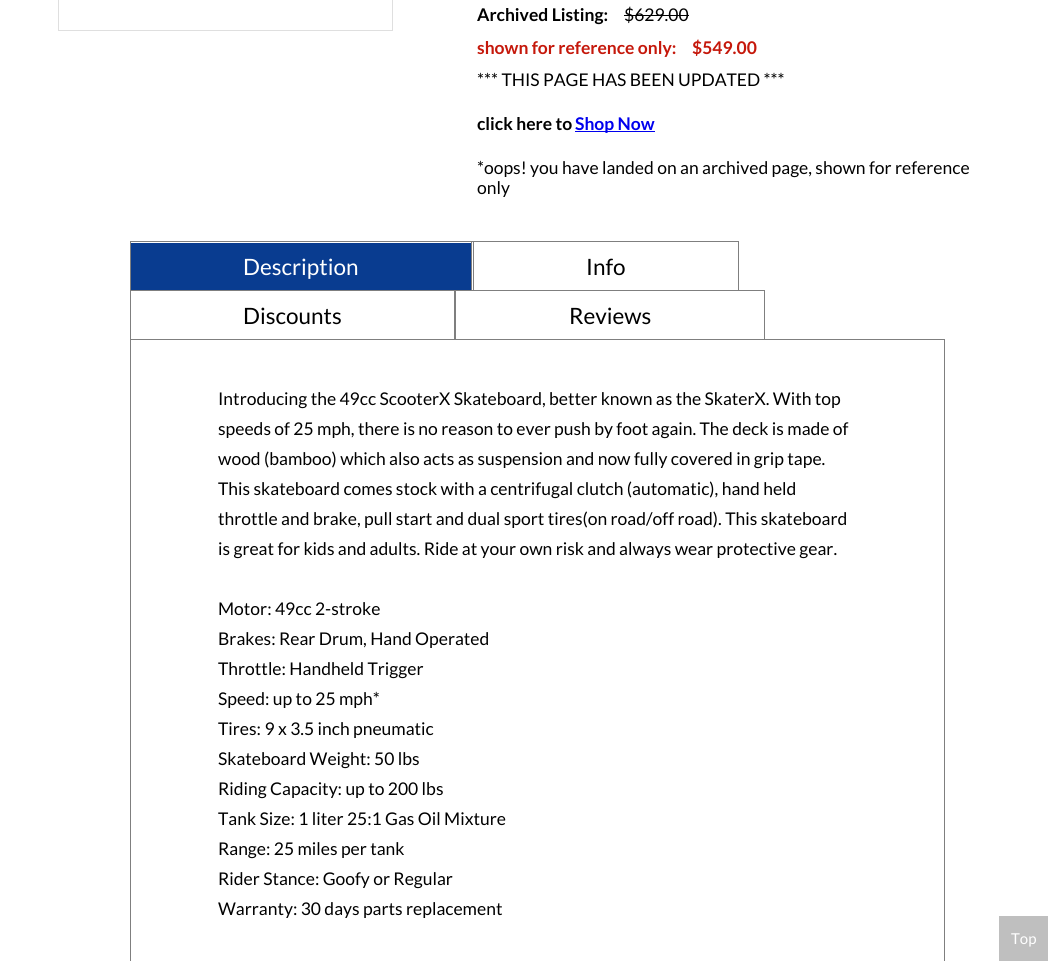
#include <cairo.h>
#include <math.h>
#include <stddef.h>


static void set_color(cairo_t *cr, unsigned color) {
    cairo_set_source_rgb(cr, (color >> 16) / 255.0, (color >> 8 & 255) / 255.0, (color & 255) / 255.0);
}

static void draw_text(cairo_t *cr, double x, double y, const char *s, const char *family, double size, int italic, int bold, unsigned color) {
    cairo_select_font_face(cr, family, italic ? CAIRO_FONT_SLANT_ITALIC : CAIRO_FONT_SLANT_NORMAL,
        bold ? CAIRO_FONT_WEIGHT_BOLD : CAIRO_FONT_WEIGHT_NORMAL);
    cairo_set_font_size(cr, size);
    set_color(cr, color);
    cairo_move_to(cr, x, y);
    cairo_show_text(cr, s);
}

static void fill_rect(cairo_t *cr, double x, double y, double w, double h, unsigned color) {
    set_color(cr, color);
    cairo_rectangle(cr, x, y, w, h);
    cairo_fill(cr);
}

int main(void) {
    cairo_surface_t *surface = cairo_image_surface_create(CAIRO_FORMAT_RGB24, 1048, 961);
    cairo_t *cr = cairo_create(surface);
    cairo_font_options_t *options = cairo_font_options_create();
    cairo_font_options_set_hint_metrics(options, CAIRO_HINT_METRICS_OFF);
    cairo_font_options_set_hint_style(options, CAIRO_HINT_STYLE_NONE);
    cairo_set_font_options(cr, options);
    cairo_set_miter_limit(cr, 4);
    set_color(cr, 0xFFFFFF);
    cairo_paint(cr);
    cairo_rectangle(cr, 58.5, -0.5, 334, 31);
    set_color(cr, 0xDFDFDF);
    cairo_set_line_width(cr, 1);
    cairo_stroke(cr);
    draw_text(cr, 477, 21, "Archived Listing:", "Lato", 17.5, 0, 1, 0x000000);
    draw_text(cr, 624, 21, "$629.00", "Lato", 17.5, 0, 0, 0x000000);
    fill_rect(cr, 624, 15, 65, 1, 0x000000);
    draw_text(cr, 477, 54, "shown for reference only:", "Lato", 17.5, 0, 1, 0xC5180B);
    draw_text(cr, 692, 54, "$549.00", "Lato", 17.5, 0, 1, 0xC5180B);
    draw_text(cr, 477, 86, "*** THIS PAGE HAS BEEN UPDATED ***", "Lato", 17.5, 0, 0, 0x000000);
    draw_text(cr, 477, 130, "click here to", "Lato", 17.5, 0, 1, 0x000000);
    fill_rect(cr, 575, 131, 80, 1, 0x0000EE);
    draw_text(cr, 575, 130, "Shop Now", "Lato", 17.5, 0, 1, 0x0000EE);
    draw_text(cr, 477, 174, "*oops! you have landed on an archived page, shown for reference", "Lato", 17.5, 0, 0, 0x000000);
    draw_text(cr, 477, 194, "only", "Lato", 17.5, 0, 0, 0x000000);
    fill_rect(cr, 130, 241, 609, 1, 0x7F7F7F);
    fill_rect(cr, 471, 241, 1, 49, 0x7F7F7F);
    fill_rect(cr, 130, 241, 1, 49, 0x7F7F7F);
    fill_rect(cr, 131, 243, 340, 47, 0x093C90);
    draw_text(cr, 243, 275, "Description", "Lato", 22.5, 0, 0, 0xFFFFFF);
    fill_rect(cr, 738, 241, 1, 49, 0x7F7F7F);
    fill_rect(cr, 473, 241, 1, 49, 0x7F7F7F);
    draw_text(cr, 586, 275, "Info", "Lato", 22.5, 0, 0, 0x000000);
    fill_rect(cr, 130, 290, 635, 1, 0x7F7F7F);
    fill_rect(cr, 454, 290, 2, 49, 0x7F7F7F);
    fill_rect(cr, 130, 290, 1, 49, 0x7F7F7F);
    draw_text(cr, 243, 324, "Discounts", "Lato", 22.5, 0, 0, 0x000000);
    fill_rect(cr, 764, 290, 1, 49, 0x7F7F7F);
    draw_text(cr, 569, 324, "Reviews", "Lato", 22.5, 0, 0, 0x000000);
    cairo_rectangle(cr, 130.5, 339.5, 814, 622);
    set_color(cr, 0x7F7F7F);
    cairo_stroke(cr);
    draw_text(cr, 218, 405, "Introducing the 49cc ScooterX Skateboard, better known as the SkaterX. With top", "Lato", 17.5, 0, 0, 0x000000);
    draw_text(cr, 218, 435, "speeds of 25 mph, there is no reason to ever push by foot again. The deck is made of", "Lato", 17.5, 0, 0, 0x000000);
    draw_text(cr, 218, 465, "wood (bamboo) which also acts as suspension and now fully covered in grip tape.", "Lato", 17.5, 0, 0, 0x000000);
    draw_text(cr, 218, 495, "This skateboard comes stock with a centrifugal clutch (automatic), hand held", "Lato", 17.5, 0, 0, 0x000000);
    draw_text(cr, 218, 525, "throttle and brake, pull start and dual sport tires(on road/off road). This skateboard", "Lato", 17.5, 0, 0, 0x000000);
    draw_text(cr, 218, 555, "is great for kids and adults. Ride at your own risk and always wear protective gear.", "Lato", 17.5, 0, 0, 0x000000);
    draw_text(cr, 218, 615, "Motor: 49cc 2-stroke", "Lato", 17.5, 0, 0, 0x000000);
    draw_text(cr, 218, 645, "Brakes: Rear Drum, Hand Operated", "Lato", 17.5, 0, 0, 0x000000);
    draw_text(cr, 218, 675, "Throttle: Handheld Trigger", "Lato", 17.5, 0, 0, 0x000000);
    draw_text(cr, 218, 705, "Speed: up to 25 mph*", "Lato", 17.5, 0, 0, 0x000000);
    draw_text(cr, 218, 735, "Tires: 9 x 3.5 inch pneumatic", "Lato", 17.5, 0, 0, 0x000000);
    draw_text(cr, 218, 765, "Skateboard Weight: 50 lbs", "Lato", 17.5, 0, 0, 0x000000);
    draw_text(cr, 218, 795, "Riding Capacity: up to 200 lbs", "Lato", 17.5, 0, 0, 0x000000);
    draw_text(cr, 218, 825, "Tank Size: 1 liter 25:1 Gas Oil Mixture", "Lato", 17.5, 0, 0, 0x000000);
    draw_text(cr, 218, 855, "Range: 25 miles per tank", "Lato", 17.5, 0, 0, 0x000000);
    draw_text(cr, 218, 885, "Rider Stance: Goofy or Regular", "Lato", 17.5, 0, 0, 0x000000);
    draw_text(cr, 218, 915, "Warranty: 30 days parts replacement", "Lato", 17.5, 0, 0, 0x000000);
    fill_rect(cr, 999, 916, 49, 45, 0xBFBFBF);
    draw_text(cr, 1011, 944, "Top", "Lato", 15, 0, 0, 0xFFFFFF);
    cairo_surface_write_to_png(surface, "output.png");
    cairo_font_options_destroy(options);
    cairo_destroy(cr);
    cairo_surface_destroy(surface);
    return 0;
}
